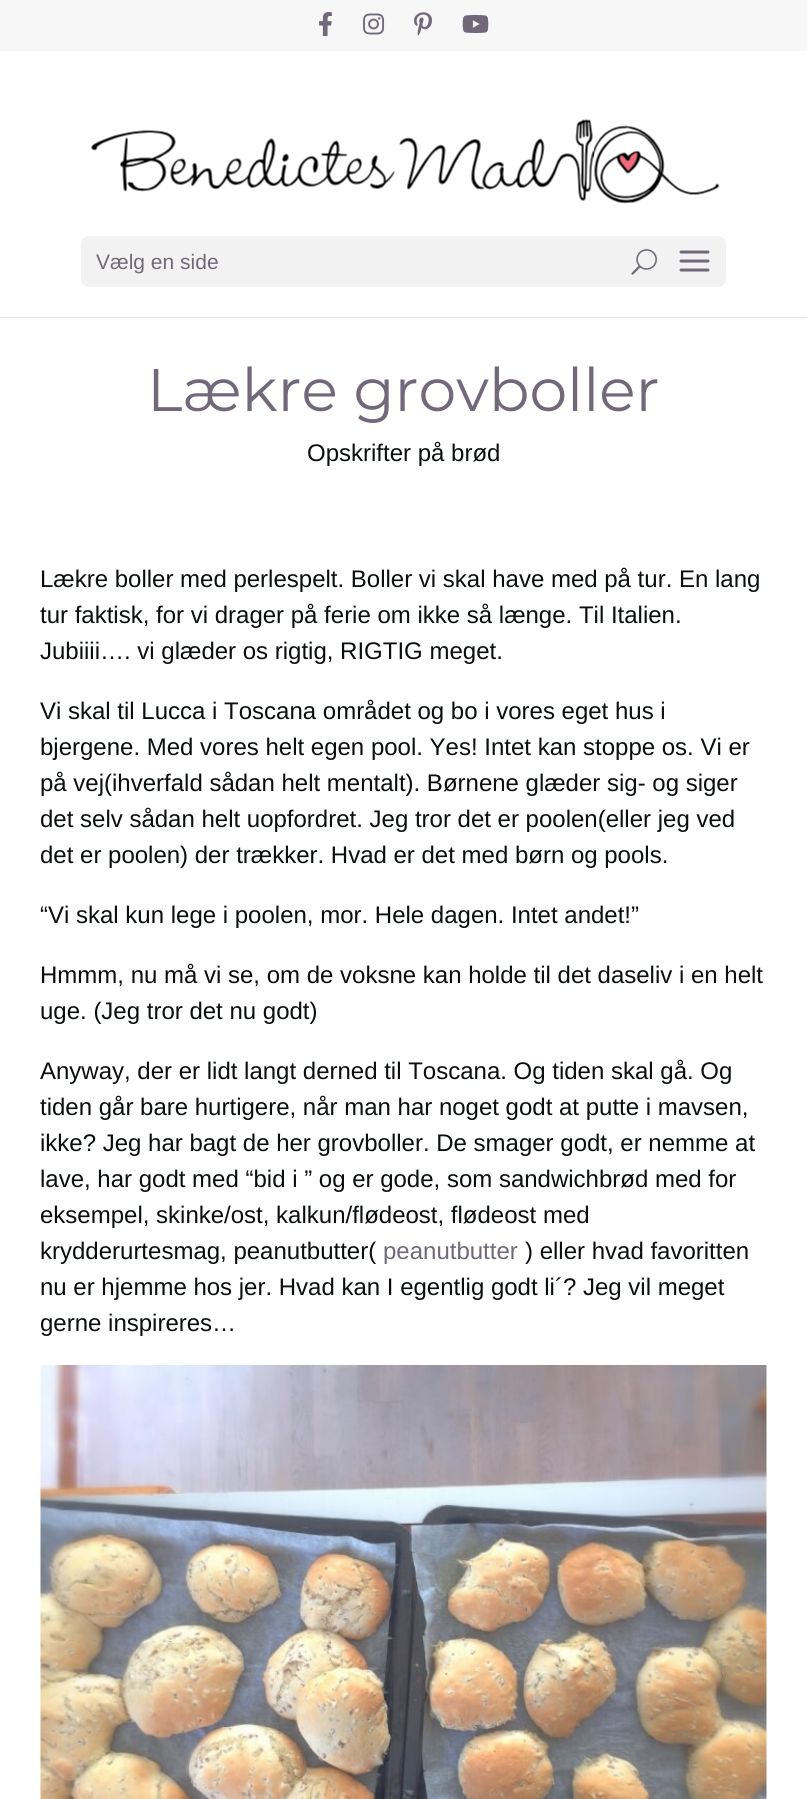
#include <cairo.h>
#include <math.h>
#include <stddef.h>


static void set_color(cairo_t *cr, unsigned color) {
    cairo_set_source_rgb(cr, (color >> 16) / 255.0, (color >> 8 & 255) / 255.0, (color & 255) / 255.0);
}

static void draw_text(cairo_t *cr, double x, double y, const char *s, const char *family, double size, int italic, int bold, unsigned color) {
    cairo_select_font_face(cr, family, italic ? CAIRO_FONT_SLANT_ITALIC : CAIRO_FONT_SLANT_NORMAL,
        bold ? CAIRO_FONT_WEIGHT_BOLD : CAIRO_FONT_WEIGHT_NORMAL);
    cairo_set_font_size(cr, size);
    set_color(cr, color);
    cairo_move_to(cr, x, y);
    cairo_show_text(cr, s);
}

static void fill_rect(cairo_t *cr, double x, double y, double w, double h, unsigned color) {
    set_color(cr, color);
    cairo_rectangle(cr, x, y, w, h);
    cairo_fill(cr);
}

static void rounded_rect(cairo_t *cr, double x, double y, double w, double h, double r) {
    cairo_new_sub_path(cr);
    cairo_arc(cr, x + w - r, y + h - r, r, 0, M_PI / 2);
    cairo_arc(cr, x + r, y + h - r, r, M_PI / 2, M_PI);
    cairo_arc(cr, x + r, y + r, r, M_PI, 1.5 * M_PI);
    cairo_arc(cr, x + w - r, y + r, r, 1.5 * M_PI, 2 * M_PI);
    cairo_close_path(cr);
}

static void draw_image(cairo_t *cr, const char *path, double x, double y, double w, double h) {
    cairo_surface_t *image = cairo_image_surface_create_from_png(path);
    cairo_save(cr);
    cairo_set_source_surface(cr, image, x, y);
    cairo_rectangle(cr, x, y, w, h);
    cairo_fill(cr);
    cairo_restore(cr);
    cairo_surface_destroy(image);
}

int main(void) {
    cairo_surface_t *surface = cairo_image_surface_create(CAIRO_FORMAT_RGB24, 807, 1799);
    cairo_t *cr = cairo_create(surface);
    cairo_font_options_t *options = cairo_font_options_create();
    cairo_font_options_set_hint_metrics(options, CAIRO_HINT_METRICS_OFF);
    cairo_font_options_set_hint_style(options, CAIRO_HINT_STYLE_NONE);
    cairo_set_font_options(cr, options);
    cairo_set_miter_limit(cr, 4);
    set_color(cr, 0xFFFFFF);
    cairo_paint(cr);
    fill_rect(cr, 0, 0, 807, 51, 0xF7F7F7);
    draw_image(cr, "assets/img1.png", 319, 12, 13, 24);
    draw_image(cr, "assets/img2.png", 363, 13, 22, 22);
    draw_image(cr, "assets/img3.png", 414, 12, 18, 24);
    draw_image(cr, "assets/img4.png", 462, 15, 27, 18);
    fill_rect(cr, 0, 317, 807, 1, 0xE6E6E6);
    draw_image(cr, "assets/img5.png", 91, 119, 629, 85);
    set_color(cr, 0xF2F2F2);
    rounded_rect(cr, 81, 236, 645, 51, 8);
    cairo_fill(cr);
    draw_text(cr, 96, 269, "Vælg en side", "Liberation Sans", 21, 0, 0, 0x71697A);
    draw_image(cr, "assets/img6.png", 679, 250, 31, 22);
    draw_image(cr, "assets/img7.png", 631, 249, 26, 26);
    draw_text(cr, 147, 411, "Lækre grovboller", "Montserrat", 60, 0, 0, 0x71697A);
    draw_text(cr, 307, 461, "Opskrifter på brød", "Liberation Sans", 24, 0, 0, 0x0A0F0D);
    draw_text(cr, 40, 587, "Lækre boller med perlespelt. Boller vi skal have med på tur. En lang", "Liberation Sans", 24, 0, 0, 0x0A0F0D);
    draw_text(cr, 40, 623, "tur faktisk, for vi drager på ferie om ikke så længe. Til Italien.", "Liberation Sans", 24, 0, 0, 0x0A0F0D);
    draw_text(cr, 40, 659, "Jubiiii…. vi glæder os rigtig, RIGTIG meget.", "Liberation Sans", 24, 0, 0, 0x0A0F0D);
    draw_text(cr, 40, 719, "Vi skal til Lucca i Toscana området og bo i vores eget hus i", "Liberation Sans", 24, 0, 0, 0x0A0F0D);
    draw_text(cr, 40, 755, "bjergene. Med vores helt egen pool. Yes! Intet kan stoppe os. Vi er", "Liberation Sans", 24, 0, 0, 0x0A0F0D);
    draw_text(cr, 40, 791, "på vej(ihverfald sådan helt mentalt). Børnene glæder sig- og siger", "Liberation Sans", 24, 0, 0, 0x0A0F0D);
    draw_text(cr, 40, 827, "det selv sådan helt uopfordret. Jeg tror det er poolen(eller jeg ved", "Liberation Sans", 24, 0, 0, 0x0A0F0D);
    draw_text(cr, 40, 863, "det er poolen) der trækker. Hvad er det med børn og pools.", "Liberation Sans", 24, 0, 0, 0x0A0F0D);
    draw_text(cr, 40, 923, "“Vi skal kun lege i poolen, mor. Hele dagen. Intet andet!”", "Liberation Sans", 24, 0, 0, 0x0A0F0D);
    draw_text(cr, 40, 983, "Hmmm, nu må vi se, om de voksne kan holde til det daseliv i en helt", "Liberation Sans", 24, 0, 0, 0x0A0F0D);
    draw_text(cr, 40, 1019, "uge. (Jeg tror det nu godt)", "Liberation Sans", 24, 0, 0, 0x0A0F0D);
    draw_text(cr, 40, 1079, "Anyway, der er lidt langt derned til Toscana. Og tiden skal gå. Og", "Liberation Sans", 24, 0, 0, 0x0A0F0D);
    draw_text(cr, 40, 1115, "tiden går bare hurtigere, når man har noget godt at putte i mavsen,", "Liberation Sans", 24, 0, 0, 0x0A0F0D);
    draw_text(cr, 40, 1151, "ikke? Jeg har bagt de her grovboller. De smager godt, er nemme at", "Liberation Sans", 24, 0, 0, 0x0A0F0D);
    draw_text(cr, 40, 1187, "lave, har godt med “bid i ” og er gode, som sandwichbrød med for", "Liberation Sans", 24, 0, 0, 0x0A0F0D);
    draw_text(cr, 40, 1223, "eksempel, skinke/ost, kalkun/flødeost, flødeost med", "Liberation Sans", 24, 0, 0, 0x0A0F0D);
    draw_text(cr, 40, 1259, "krydderurtesmag, peanutbutter(", "Liberation Sans", 24, 0, 0, 0x0A0F0D);
    draw_text(cr, 383, 1259, "peanutbutter", "Liberation Sans", 24, 0, 0, 0x71697A);
    draw_text(cr, 525, 1259, ") eller hvad favoritten", "Liberation Sans", 24, 0, 0, 0x0A0F0D);
    draw_text(cr, 40, 1295, "nu er hjemme hos jer. Hvad kan I egentlig godt li´? Jeg vil meget", "Liberation Sans", 24, 0, 0, 0x0A0F0D);
    draw_text(cr, 40, 1331, "gerne inspireres…", "Liberation Sans", 24, 0, 0, 0x0A0F0D);
    draw_image(cr, "assets/img8.png", 40, 1365, 727, 434);
    cairo_surface_write_to_png(surface, "output.png");
    cairo_font_options_destroy(options);
    cairo_destroy(cr);
    cairo_surface_destroy(surface);
    return 0;
}
